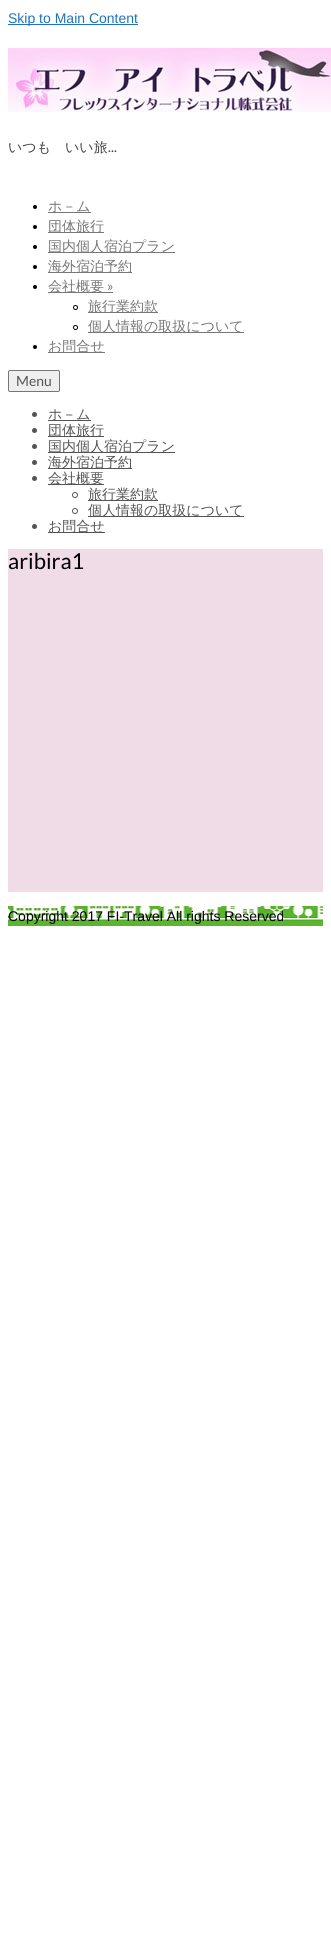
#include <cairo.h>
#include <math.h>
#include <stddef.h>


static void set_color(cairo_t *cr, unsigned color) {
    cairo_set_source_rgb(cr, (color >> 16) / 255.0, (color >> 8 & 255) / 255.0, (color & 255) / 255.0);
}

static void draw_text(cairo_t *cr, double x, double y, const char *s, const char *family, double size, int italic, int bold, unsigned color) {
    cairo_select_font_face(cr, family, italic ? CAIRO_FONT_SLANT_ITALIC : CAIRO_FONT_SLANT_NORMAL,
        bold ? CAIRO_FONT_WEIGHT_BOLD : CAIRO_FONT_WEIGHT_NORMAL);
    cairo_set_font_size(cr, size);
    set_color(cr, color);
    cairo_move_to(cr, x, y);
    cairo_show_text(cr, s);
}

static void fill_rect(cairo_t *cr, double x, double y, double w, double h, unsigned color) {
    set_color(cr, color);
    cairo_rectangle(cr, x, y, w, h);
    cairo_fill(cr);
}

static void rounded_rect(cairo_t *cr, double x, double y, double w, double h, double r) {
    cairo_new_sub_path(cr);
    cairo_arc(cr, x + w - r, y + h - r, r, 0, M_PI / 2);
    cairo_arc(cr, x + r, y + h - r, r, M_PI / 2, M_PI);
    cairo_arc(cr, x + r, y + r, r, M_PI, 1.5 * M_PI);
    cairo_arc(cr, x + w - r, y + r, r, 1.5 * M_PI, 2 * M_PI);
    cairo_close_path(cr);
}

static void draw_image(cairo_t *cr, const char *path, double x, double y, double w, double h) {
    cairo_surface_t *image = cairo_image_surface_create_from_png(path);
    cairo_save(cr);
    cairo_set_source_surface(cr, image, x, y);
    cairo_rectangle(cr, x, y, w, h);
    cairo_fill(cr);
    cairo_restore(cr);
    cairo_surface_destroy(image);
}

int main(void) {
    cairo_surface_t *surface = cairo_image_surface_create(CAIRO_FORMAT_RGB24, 331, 1950);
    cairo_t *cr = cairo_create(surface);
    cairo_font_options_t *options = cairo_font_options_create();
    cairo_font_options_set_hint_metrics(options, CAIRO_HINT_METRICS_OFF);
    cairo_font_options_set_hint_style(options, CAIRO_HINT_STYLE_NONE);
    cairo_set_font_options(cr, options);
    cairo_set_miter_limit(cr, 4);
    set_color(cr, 0xFFFFFF);
    cairo_paint(cr);
    fill_rect(cr, 8, 24, 130, 1, 0x1E73BE);
    draw_text(cr, 8, 23, "Skip to Main Content", "Liberation Sans", 14, 0, 0, 0x1E73BE);
    draw_image(cr, "assets/img1.png", 8, 48, 323, 64);
    draw_text(cr, 8, 152, "いつも　いい旅", "WenQuanYi Zen Hei Medium", 14, 0, 0, 0x444444);
    draw_text(cr, 108, 152, "...", "Lato", 14, 0, 0, 0x444444);
    set_color(cr, 0x000000);
    cairo_new_path(cr);
    cairo_arc(cr, 35, 207, 2, 0, 2 * M_PI);
    cairo_fill(cr);
    fill_rect(cr, 48, 212, 43, 1, 0x777777);
    draw_text(cr, 48, 211, "ホ－ム", "WenQuanYi Zen Hei Medium", 14, 0, 0, 0x777777);
    set_color(cr, 0x000000);
    cairo_new_path(cr);
    cairo_arc(cr, 35, 227, 2, 0, 2 * M_PI);
    cairo_fill(cr);
    fill_rect(cr, 48, 232, 56, 1, 0x777777);
    draw_text(cr, 48, 231, "団体旅行", "WenQuanYi Zen Hei Medium", 14, 0, 0, 0x777777);
    set_color(cr, 0x000000);
    cairo_new_path(cr);
    cairo_arc(cr, 35, 247, 2, 0, 2 * M_PI);
    cairo_fill(cr);
    fill_rect(cr, 48, 252, 127, 1, 0x777777);
    draw_text(cr, 48, 251, "国内個人宿泊プラン", "WenQuanYi Zen Hei Medium", 14, 0, 0, 0x777777);
    set_color(cr, 0x000000);
    cairo_new_path(cr);
    cairo_arc(cr, 35, 267, 2, 0, 2 * M_PI);
    cairo_fill(cr);
    fill_rect(cr, 48, 272, 84, 1, 0x777777);
    draw_text(cr, 48, 271, "海外宿泊予約", "WenQuanYi Zen Hei Medium", 14, 0, 0, 0x777777);
    set_color(cr, 0x000000);
    cairo_new_path(cr);
    cairo_arc(cr, 35, 287, 2, 0, 2 * M_PI);
    cairo_fill(cr);
    fill_rect(cr, 48, 292, 65, 1, 0x777777);
    draw_text(cr, 48, 291, "会社概要", "WenQuanYi Zen Hei Medium", 14, 0, 0, 0x777777);
    draw_text(cr, 107, 291, "»", "Lato", 14, 0, 0, 0x777777);
    cairo_new_path(cr);
    cairo_arc(cr, 75.5, 307.5, 2, 0, 2 * M_PI);
    set_color(cr, 0x000000);
    cairo_set_line_width(cr, 1);
    cairo_stroke(cr);
    fill_rect(cr, 88, 312, 70, 1, 0x777777);
    draw_text(cr, 88, 311, "旅行業約款", "WenQuanYi Zen Hei Medium", 14, 0, 0, 0x777777);
    cairo_new_path(cr);
    cairo_arc(cr, 75.5, 327.5, 2, 0, 2 * M_PI);
    set_color(cr, 0x000000);
    cairo_stroke(cr);
    fill_rect(cr, 88, 332, 156, 1, 0x777777);
    draw_text(cr, 88, 331, "個人情報の取扱について", "WenQuanYi Zen Hei Medium", 14, 0, 0, 0x777777);
    set_color(cr, 0x000000);
    cairo_new_path(cr);
    cairo_arc(cr, 35, 347, 2, 0, 2 * M_PI);
    cairo_fill(cr);
    fill_rect(cr, 48, 352, 57, 1, 0x777777);
    draw_text(cr, 48, 351, "お問合せ", "WenQuanYi Zen Hei Medium", 14, 0, 0, 0x777777);
    set_color(cr, 0xEFEFEF);
    rounded_rect(cr, 8.5, 370.5, 51, 21, 1.5);
    cairo_fill_preserve(cr);
    set_color(cr, 0x767676);
    cairo_stroke(cr);
    draw_text(cr, 16, 386, "Menu", "Lato", 14, 0, 0, 0x545454);
    cairo_new_path(cr);
    cairo_arc(cr, 34.5, 414.5, 2.5, 0, 2 * M_PI);
    cairo_fill(cr);
    fill_rect(cr, 48, 420, 43, 1, 0x545454);
    draw_text(cr, 48, 419, "ホ－ム", "WenQuanYi Zen Hei Medium", 14, 0, 0, 0x545454);
    cairo_new_path(cr);
    cairo_arc(cr, 34.5, 430.5, 2.5, 0, 2 * M_PI);
    cairo_fill(cr);
    fill_rect(cr, 48, 436, 56, 1, 0x545454);
    draw_text(cr, 48, 435, "団体旅行", "WenQuanYi Zen Hei Medium", 14, 0, 0, 0x545454);
    cairo_new_path(cr);
    cairo_arc(cr, 34.5, 446.5, 2.5, 0, 2 * M_PI);
    cairo_fill(cr);
    fill_rect(cr, 48, 452, 127, 1, 0x545454);
    draw_text(cr, 48, 451, "国内個人宿泊プラン", "WenQuanYi Zen Hei Medium", 14, 0, 0, 0x545454);
    cairo_new_path(cr);
    cairo_arc(cr, 34.5, 462.5, 2.5, 0, 2 * M_PI);
    cairo_fill(cr);
    fill_rect(cr, 48, 468, 84, 1, 0x545454);
    draw_text(cr, 48, 467, "海外宿泊予約", "WenQuanYi Zen Hei Medium", 14, 0, 0, 0x545454);
    cairo_new_path(cr);
    cairo_arc(cr, 34.5, 478.5, 2.5, 0, 2 * M_PI);
    cairo_fill(cr);
    fill_rect(cr, 48, 484, 56, 1, 0x545454);
    draw_text(cr, 48, 483, "会社概要", "WenQuanYi Zen Hei Medium", 14, 0, 0, 0x545454);
    cairo_new_path(cr);
    cairo_arc(cr, 75, 495, 2.5, 0, 2 * M_PI);
    cairo_stroke(cr);
    fill_rect(cr, 88, 500, 70, 1, 0x545454);
    draw_text(cr, 88, 499, "旅行業約款", "WenQuanYi Zen Hei Medium", 14, 0, 0, 0x545454);
    cairo_new_path(cr);
    cairo_arc(cr, 75, 511, 2.5, 0, 2 * M_PI);
    cairo_stroke(cr);
    fill_rect(cr, 88, 516, 156, 1, 0x545454);
    draw_text(cr, 88, 515, "個人情報の取扱について", "WenQuanYi Zen Hei Medium", 14, 0, 0, 0x545454);
    cairo_new_path(cr);
    cairo_arc(cr, 34.5, 526.5, 2.5, 0, 2 * M_PI);
    cairo_fill(cr);
    fill_rect(cr, 48, 532, 57, 1, 0x545454);
    draw_text(cr, 48, 531, "お問合せ", "WenQuanYi Zen Hei Medium", 14, 0, 0, 0x545454);
    fill_rect(cr, 8, 549, 315, 343, 0xEFDCE6);
    draw_text(cr, 8, 569, "aribira1", "Lato", 22, 0, 0, 0x000000);
    draw_image(cr, "assets/img2.png", 8, 906, 315, 20);
    draw_text(cr, 8, 921, "Copyright 2017 FI-Travel All rights Reserved", "Liberation Sans", 14, 0, 0, 0x000000);
    cairo_surface_write_to_png(surface, "output.png");
    cairo_font_options_destroy(options);
    cairo_destroy(cr);
    cairo_surface_destroy(surface);
    return 0;
}
